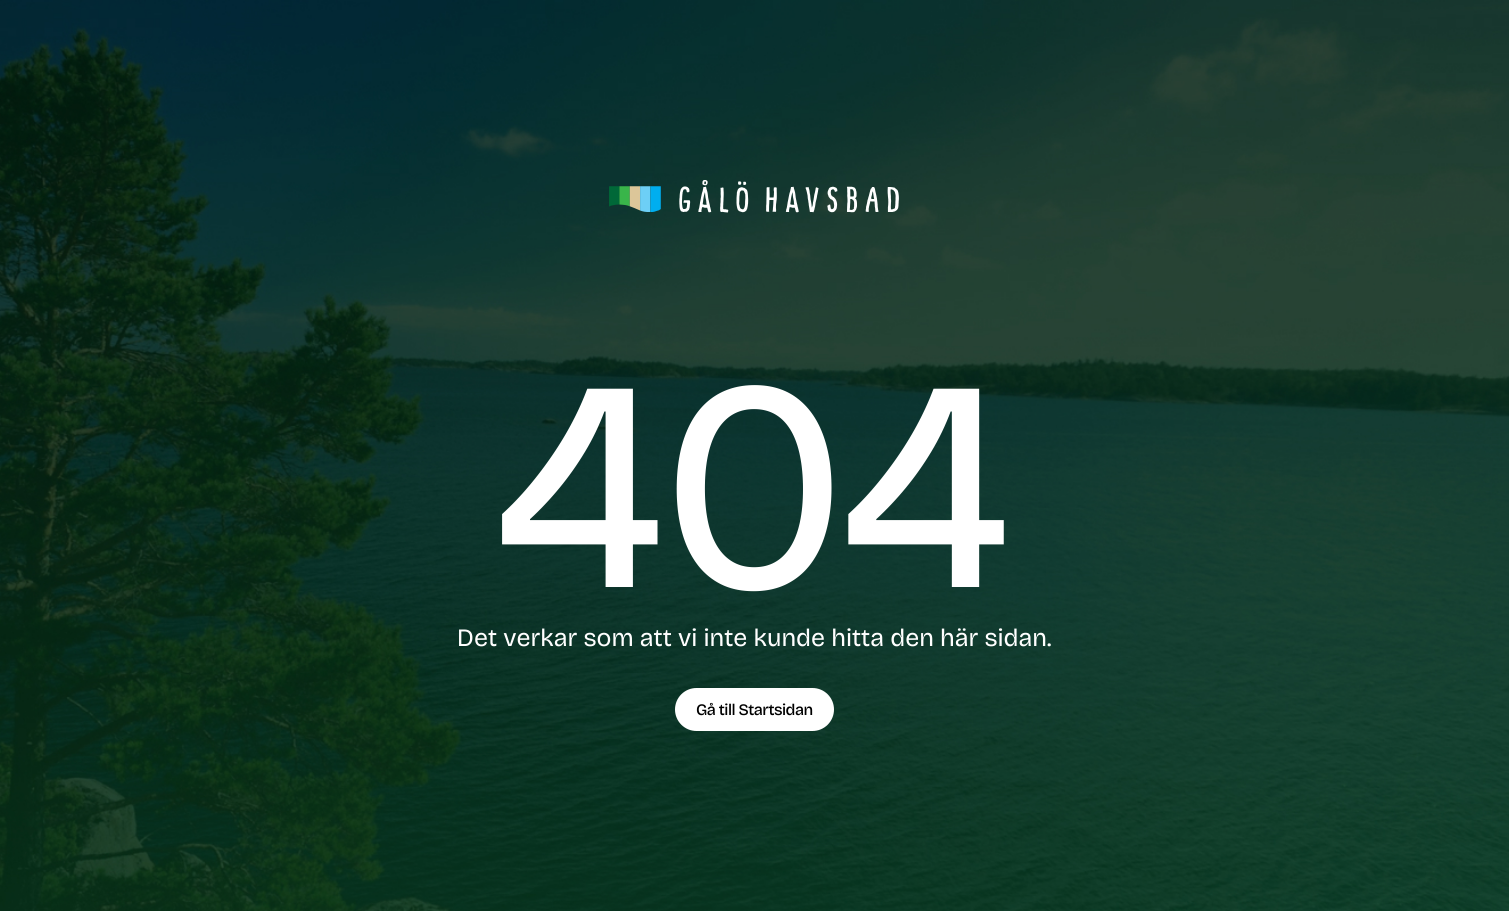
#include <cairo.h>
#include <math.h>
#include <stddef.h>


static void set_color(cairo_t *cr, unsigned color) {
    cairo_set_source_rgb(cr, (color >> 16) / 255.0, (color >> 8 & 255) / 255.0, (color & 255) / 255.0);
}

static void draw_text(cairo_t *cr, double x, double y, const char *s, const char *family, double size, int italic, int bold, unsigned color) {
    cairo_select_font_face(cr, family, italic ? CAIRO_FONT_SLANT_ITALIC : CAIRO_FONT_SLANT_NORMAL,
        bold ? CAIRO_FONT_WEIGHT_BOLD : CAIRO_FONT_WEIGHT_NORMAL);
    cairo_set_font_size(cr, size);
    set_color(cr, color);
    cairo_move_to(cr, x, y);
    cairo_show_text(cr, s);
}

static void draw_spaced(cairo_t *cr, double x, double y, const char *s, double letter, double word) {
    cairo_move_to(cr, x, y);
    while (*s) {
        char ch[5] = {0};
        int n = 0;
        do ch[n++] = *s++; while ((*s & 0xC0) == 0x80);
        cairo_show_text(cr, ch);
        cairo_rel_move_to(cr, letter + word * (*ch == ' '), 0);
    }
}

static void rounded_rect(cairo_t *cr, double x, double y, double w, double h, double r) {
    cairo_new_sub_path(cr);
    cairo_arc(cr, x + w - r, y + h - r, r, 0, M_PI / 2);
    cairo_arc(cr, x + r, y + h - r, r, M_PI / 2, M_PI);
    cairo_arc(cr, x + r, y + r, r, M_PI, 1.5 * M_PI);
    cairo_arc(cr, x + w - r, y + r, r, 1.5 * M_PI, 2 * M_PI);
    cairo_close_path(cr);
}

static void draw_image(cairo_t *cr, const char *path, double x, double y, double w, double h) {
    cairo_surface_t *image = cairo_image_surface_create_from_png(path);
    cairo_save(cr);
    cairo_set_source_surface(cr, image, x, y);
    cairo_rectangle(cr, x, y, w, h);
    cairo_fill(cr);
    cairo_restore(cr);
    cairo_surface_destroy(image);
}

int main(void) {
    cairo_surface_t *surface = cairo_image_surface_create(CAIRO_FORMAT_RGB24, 1509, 911);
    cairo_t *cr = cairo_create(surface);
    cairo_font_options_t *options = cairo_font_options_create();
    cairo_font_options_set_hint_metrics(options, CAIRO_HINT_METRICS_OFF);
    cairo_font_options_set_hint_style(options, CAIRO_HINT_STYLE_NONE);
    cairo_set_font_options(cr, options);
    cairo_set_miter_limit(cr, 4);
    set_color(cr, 0xFFFFFF);
    cairo_paint(cr);
    draw_image(cr, "assets/img1.png", 0, 0, 1509, 911);
    draw_image(cr, "assets/img2.png", 609, 180, 290, 33);
    draw_text(cr, 497, 587, "404", "Bricolage Grotesque", 300, 0, 0, 0xFFFFFF);
    draw_text(cr, 457, 646, "Det verkar som att vi inte kunde hitta den här sidan.", "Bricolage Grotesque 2", 25, 0, 0, 0xFFFFFF);
    rounded_rect(cr, 675, 688, 159, 43, 21.5);
    cairo_fill(cr);
    cairo_select_font_face(cr, "Bricolage Grotesque Medium", CAIRO_FONT_SLANT_NORMAL, CAIRO_FONT_WEIGHT_NORMAL);
    cairo_set_font_size(cr, 16);
    set_color(cr, 0x000000);
    draw_spaced(cr, 696, 715, "Gå till Startsidan", -0.5, 0);
    cairo_surface_write_to_png(surface, "output.png");
    cairo_font_options_destroy(options);
    cairo_destroy(cr);
    cairo_surface_destroy(surface);
    return 0;
}
